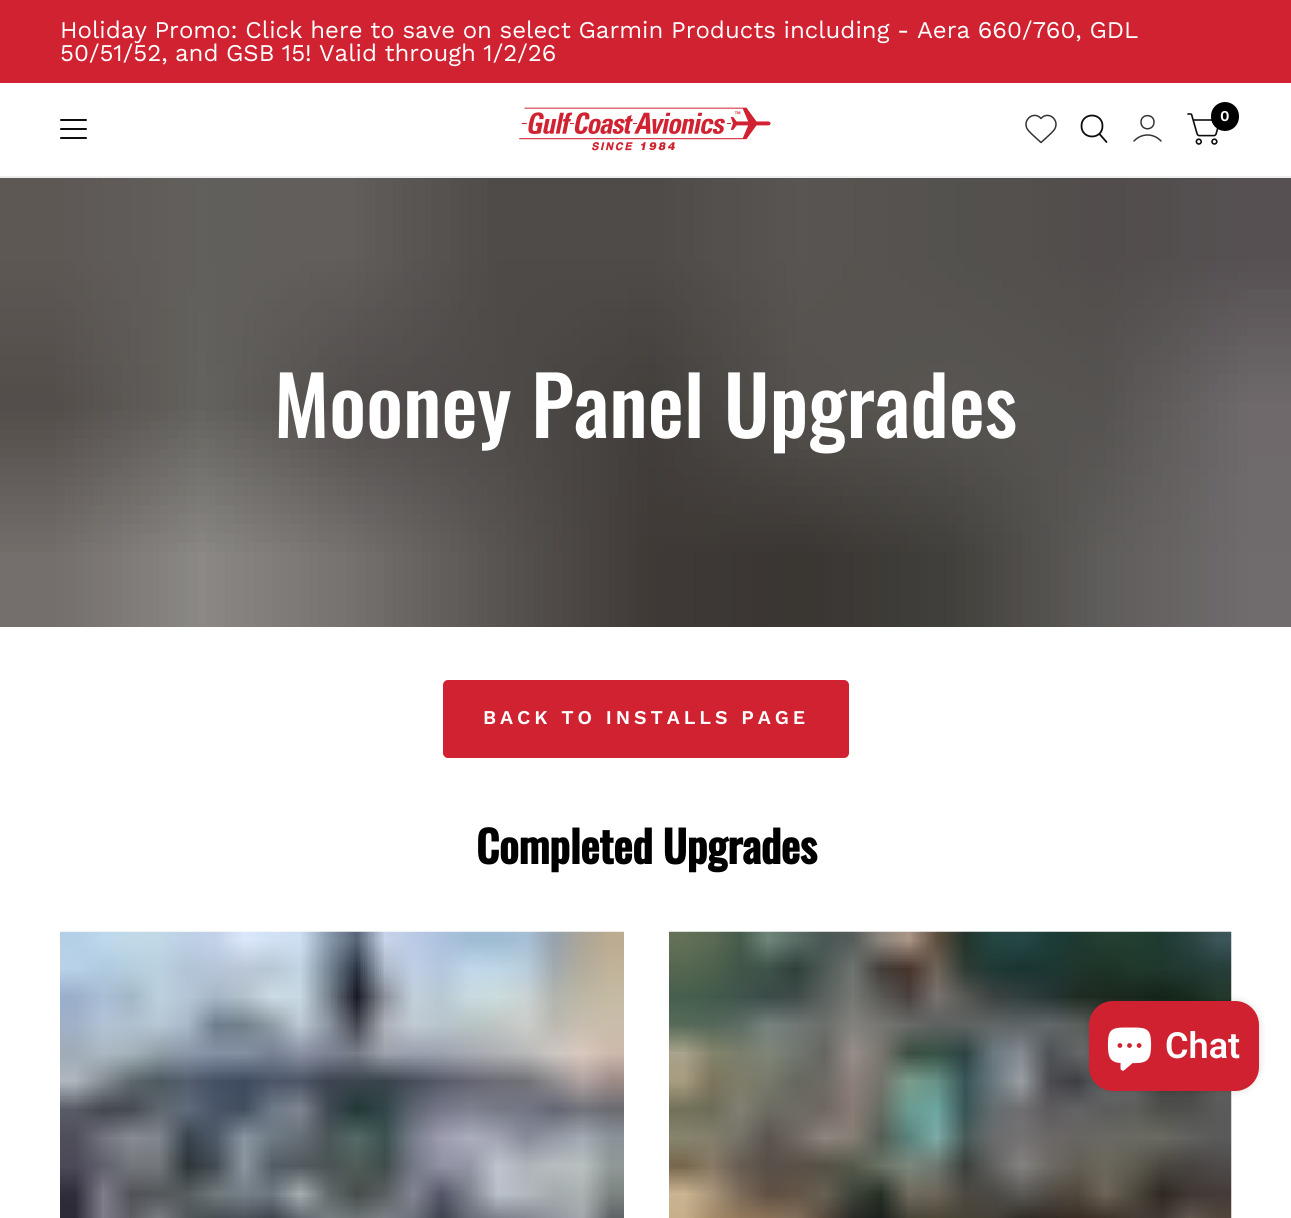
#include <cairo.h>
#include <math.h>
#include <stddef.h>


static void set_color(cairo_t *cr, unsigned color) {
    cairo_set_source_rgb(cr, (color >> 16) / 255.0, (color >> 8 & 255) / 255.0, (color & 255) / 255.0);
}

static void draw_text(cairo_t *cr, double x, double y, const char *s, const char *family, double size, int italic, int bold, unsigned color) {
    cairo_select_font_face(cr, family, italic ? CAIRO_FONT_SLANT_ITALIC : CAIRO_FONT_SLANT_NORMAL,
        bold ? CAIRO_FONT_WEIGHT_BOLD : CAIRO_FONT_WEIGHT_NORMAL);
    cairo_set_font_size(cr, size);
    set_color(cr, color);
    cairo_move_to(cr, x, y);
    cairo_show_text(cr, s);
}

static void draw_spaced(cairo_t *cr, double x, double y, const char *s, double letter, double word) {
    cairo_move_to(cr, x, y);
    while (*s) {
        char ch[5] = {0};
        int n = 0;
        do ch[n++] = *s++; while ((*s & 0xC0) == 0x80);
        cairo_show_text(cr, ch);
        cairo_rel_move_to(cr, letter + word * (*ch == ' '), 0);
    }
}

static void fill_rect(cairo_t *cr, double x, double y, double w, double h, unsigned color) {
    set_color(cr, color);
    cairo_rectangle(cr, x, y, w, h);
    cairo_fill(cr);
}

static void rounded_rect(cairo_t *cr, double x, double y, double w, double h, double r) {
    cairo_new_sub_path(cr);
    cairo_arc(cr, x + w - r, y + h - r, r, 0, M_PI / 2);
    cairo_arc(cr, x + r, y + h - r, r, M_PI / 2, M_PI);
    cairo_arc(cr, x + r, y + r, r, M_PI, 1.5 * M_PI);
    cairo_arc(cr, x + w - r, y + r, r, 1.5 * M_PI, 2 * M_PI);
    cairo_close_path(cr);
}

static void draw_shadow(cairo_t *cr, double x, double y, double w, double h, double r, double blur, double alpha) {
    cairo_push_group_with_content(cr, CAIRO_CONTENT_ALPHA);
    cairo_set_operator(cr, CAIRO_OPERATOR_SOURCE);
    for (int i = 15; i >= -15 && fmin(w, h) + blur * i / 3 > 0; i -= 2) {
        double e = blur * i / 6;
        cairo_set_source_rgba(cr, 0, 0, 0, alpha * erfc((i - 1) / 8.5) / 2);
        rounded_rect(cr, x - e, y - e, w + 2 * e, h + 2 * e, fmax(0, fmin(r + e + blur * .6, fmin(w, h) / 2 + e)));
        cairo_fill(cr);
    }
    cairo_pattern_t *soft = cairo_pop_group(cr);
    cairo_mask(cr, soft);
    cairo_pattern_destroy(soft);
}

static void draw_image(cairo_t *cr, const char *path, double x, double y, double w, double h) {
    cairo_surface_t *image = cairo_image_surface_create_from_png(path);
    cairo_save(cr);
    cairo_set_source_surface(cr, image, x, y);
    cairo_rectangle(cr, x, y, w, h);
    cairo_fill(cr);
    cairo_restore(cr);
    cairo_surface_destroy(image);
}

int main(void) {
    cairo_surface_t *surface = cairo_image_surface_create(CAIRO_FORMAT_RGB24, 1291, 1218);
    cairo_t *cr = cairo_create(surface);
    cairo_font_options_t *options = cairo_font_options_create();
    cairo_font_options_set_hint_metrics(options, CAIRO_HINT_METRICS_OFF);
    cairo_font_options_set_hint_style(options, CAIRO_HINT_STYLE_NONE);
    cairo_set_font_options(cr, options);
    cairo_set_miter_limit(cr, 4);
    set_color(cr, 0xFFFFFF);
    cairo_paint(cr);
    fill_rect(cr, 0, 0, 1291, 83, 0xD02231);
    cairo_select_font_face(cr, "Work Sans", CAIRO_FONT_SLANT_NORMAL, CAIRO_FONT_WEIGHT_NORMAL);
    cairo_set_font_size(cr, 24);
    set_color(cr, 0xFFFFFF);
    draw_spaced(cr, 60, 38, "Holiday Promo: Click here to save on select Garmin Products including - Aera 660/760, GDL", 0, -0.5);
    draw_spaced(cr, 60, 61, "50/51/52, and GSB 15! Valid through 1/2/26", 0, -0.75);
    fill_rect(cr, 0, 176, 1291, 2, 0xEEEEEE);
    draw_image(cr, "assets/img1.png", 519, 107, 252, 44);
    cairo_new_path(cr);
    cairo_move_to(cr, 1041, 118.5);
    cairo_curve_to(cr, 1034, 110.5, 1022.5, 119.5, 1027, 128.5);
    cairo_curve_to(cr, 1029, 132, 1033, 135, 1036, 138);
    cairo_line_to(cr, 1041, 142.5);
    cairo_line_to(cr, 1046, 138);
    cairo_curve_to(cr, 1049, 135, 1053, 132, 1055, 128.5);
    cairo_curve_to(cr, 1059.5, 119.5, 1048, 110.5, 1041, 118.5);
    cairo_close_path(cr);
    set_color(cr, 0x333333);
    cairo_set_line_width(cr, 1.5);
    cairo_set_line_cap(cr, CAIRO_LINE_CAP_ROUND);
    cairo_set_line_join(cr, CAIRO_LINE_JOIN_ROUND);
    cairo_stroke(cr);
    cairo_new_path(cr);
    cairo_move_to(cr, 1099.5, 134);
    cairo_line_to(cr, 1106.5, 142);
    cairo_move_to(cr, 1102.5, 126);
    cairo_curve_to(cr, 1102.5, 140, 1081.5, 140, 1081.5, 126);
    cairo_curve_to(cr, 1081.5, 112, 1102.5, 112, 1102.5, 126);
    cairo_close_path(cr);
    set_color(cr, 0x0C0D0D);
    cairo_set_line_width(cr, 1.8);
    cairo_stroke(cr);
    cairo_new_path(cr);
    cairo_move_to(cr, 1134, 141);
    cairo_curve_to(cr, 1141.5, 133, 1153.5, 133, 1161, 141);
    cairo_move_to(cr, 1154, 122);
    cairo_curve_to(cr, 1154, 131, 1141, 131, 1141, 122);
    cairo_curve_to(cr, 1141, 113.5, 1154, 113.5, 1154, 122);
    cairo_close_path(cr);
    set_color(cr, 0x333333);
    cairo_set_line_width(cr, 1.5);
    cairo_stroke(cr);
    draw_image(cr, "assets/img2.png", 1187, 113, 32, 32);
    set_color(cr, 0x000000);
    rounded_rect(cr, 1211, 102, 28, 29, 14);
    cairo_fill(cr);
    draw_text(cr, 1220, 121, "0", "Work Sans SemiBold", 15, 0, 0, 0xFFFFFF);
    set_color(cr, 0x0C0D0D);
    rounded_rect(cr, 60, 119, 27, 2, 1);
    cairo_fill(cr);
    rounded_rect(cr, 60, 128, 27, 2, 1);
    cairo_fill(cr);
    rounded_rect(cr, 60, 137, 27, 2, 1);
    cairo_fill(cr);
    draw_image(cr, "assets/img3.png", 0, 178, 1291, 449);
    draw_text(cr, 274, 438, "Mooney Panel Upgrades", "Oswald Medium", 81, 0, 0, 0xFFFFFF);
    set_color(cr, 0xD02231);
    rounded_rect(cr, 443, 680, 406, 78, 5);
    cairo_fill(cr);
    cairo_select_font_face(cr, "Work Sans SemiBold", CAIRO_FONT_SLANT_NORMAL, CAIRO_FONT_WEIGHT_NORMAL);
    cairo_set_font_size(cr, 19.5);
    set_color(cr, 0xFFFFFF);
    draw_spaced(cr, 483, 724, "BACK TO INSTALLS PAGE", 3.9, 0);
    cairo_select_font_face(cr, "Oswald", CAIRO_FONT_SLANT_NORMAL, CAIRO_FONT_WEIGHT_BOLD);
    cairo_set_font_size(cr, 43.5);
    set_color(cr, 0x000000);
    draw_spaced(cr, 476, 864, "Completed Upgrades", -0.4, 0);
    draw_image(cr, "assets/img4.png", 60, 931, 564, 287);
    draw_image(cr, "assets/img5.png", 669, 931, 563, 287);
    set_color(cr, 0x000000);
    draw_shadow(cr, 1089, 1001, 170, 90, 24, 4, 0.15);
    set_color(cr, 0xCF2130);
    rounded_rect(cr, 1089, 1001, 170, 90, 24);
    cairo_fill(cr);
    draw_image(cr, "assets/img6.png", 1107, 1027, 45, 44);
    draw_text(cr, 1165, 1058, "Chat", "Roboto SemiBold", 36, 0, 0, 0xFFFFFF);
    cairo_surface_write_to_png(surface, "output.png");
    cairo_font_options_destroy(options);
    cairo_destroy(cr);
    cairo_surface_destroy(surface);
    return 0;
}
